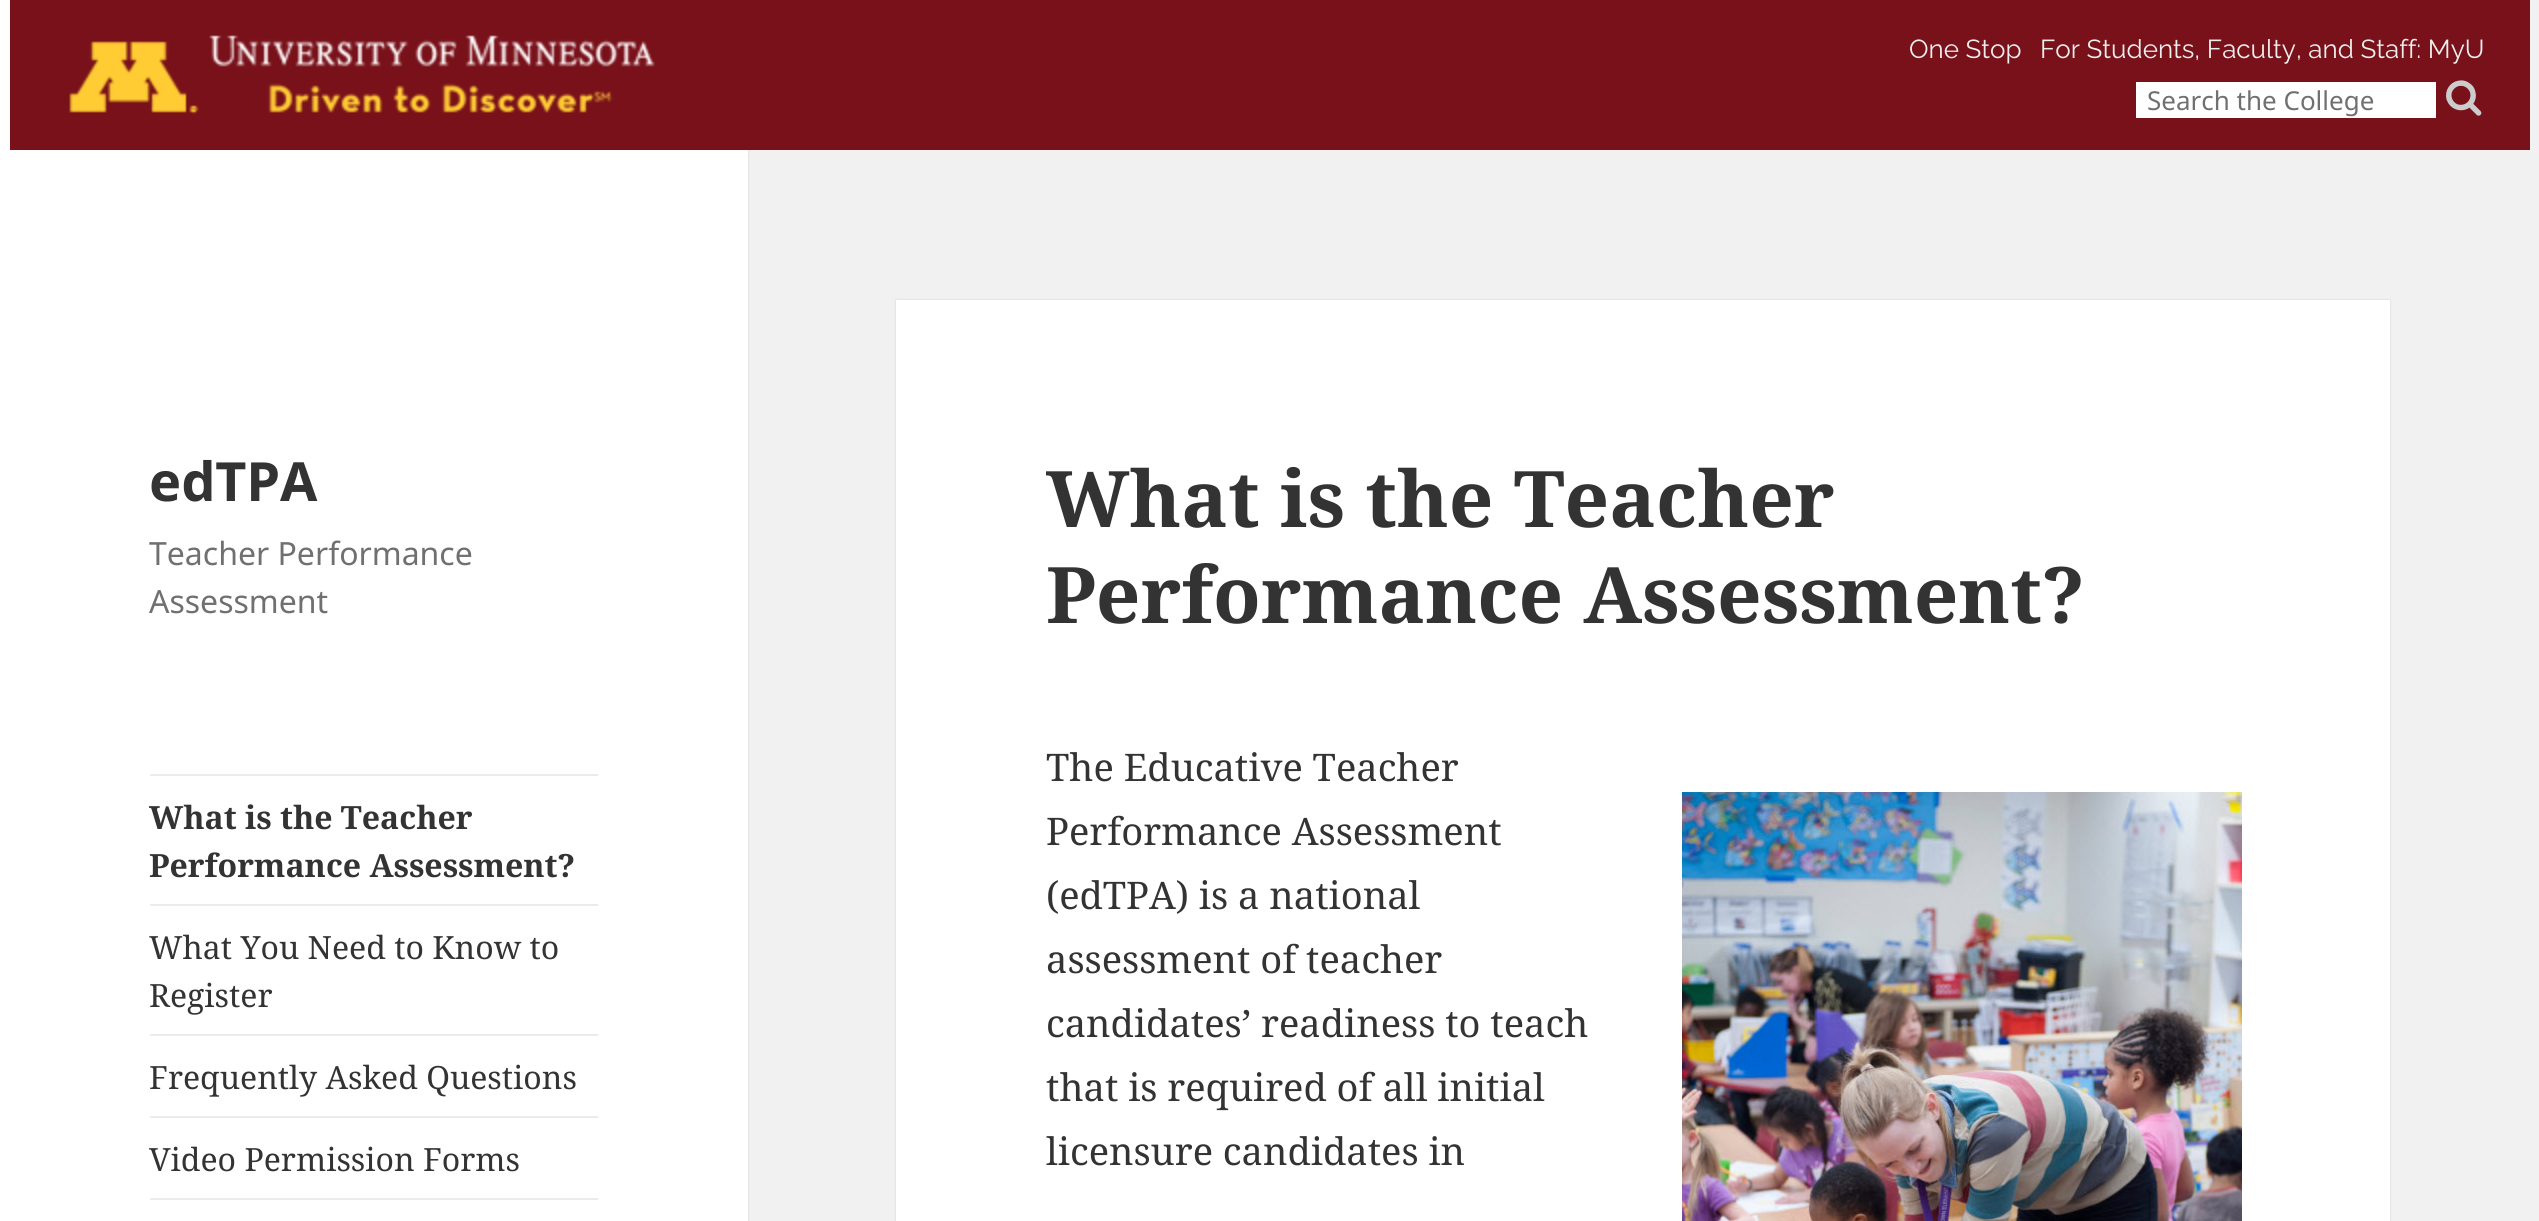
#include <cairo.h>
#include <math.h>
#include <stddef.h>


static void set_color(cairo_t *cr, unsigned color) {
    cairo_set_source_rgb(cr, (color >> 16) / 255.0, (color >> 8 & 255) / 255.0, (color & 255) / 255.0);
}

static void draw_text(cairo_t *cr, double x, double y, const char *s, const char *family, double size, int italic, int bold, unsigned color) {
    cairo_select_font_face(cr, family, italic ? CAIRO_FONT_SLANT_ITALIC : CAIRO_FONT_SLANT_NORMAL,
        bold ? CAIRO_FONT_WEIGHT_BOLD : CAIRO_FONT_WEIGHT_NORMAL);
    cairo_set_font_size(cr, size);
    set_color(cr, color);
    cairo_move_to(cr, x, y);
    cairo_show_text(cr, s);
}

static void fill_rect(cairo_t *cr, double x, double y, double w, double h, unsigned color) {
    set_color(cr, color);
    cairo_rectangle(cr, x, y, w, h);
    cairo_fill(cr);
}

static void rounded_rect(cairo_t *cr, double x, double y, double w, double h, double r) {
    cairo_new_sub_path(cr);
    cairo_arc(cr, x + w - r, y + h - r, r, 0, M_PI / 2);
    cairo_arc(cr, x + r, y + h - r, r, M_PI / 2, M_PI);
    cairo_arc(cr, x + r, y + r, r, M_PI, 1.5 * M_PI);
    cairo_arc(cr, x + w - r, y + r, r, 1.5 * M_PI, 2 * M_PI);
    cairo_close_path(cr);
}

static void draw_shadow(cairo_t *cr, double x, double y, double w, double h, double r, double blur, double alpha) {
    cairo_push_group_with_content(cr, CAIRO_CONTENT_ALPHA);
    cairo_set_operator(cr, CAIRO_OPERATOR_SOURCE);
    for (int i = 15; i >= -15 && fmin(w, h) + blur * i / 3 > 0; i -= 2) {
        double e = blur * i / 6;
        cairo_set_source_rgba(cr, 0, 0, 0, alpha * erfc((i - 1) / 8.5) / 2);
        rounded_rect(cr, x - e, y - e, w + 2 * e, h + 2 * e, fmax(0, fmin(r + e + blur * .6, fmin(w, h) / 2 + e)));
        cairo_fill(cr);
    }
    cairo_pattern_t *soft = cairo_pop_group(cr);
    cairo_mask(cr, soft);
    cairo_pattern_destroy(soft);
}

static void draw_image(cairo_t *cr, const char *path, double x, double y, double w, double h) {
    cairo_surface_t *image = cairo_image_surface_create_from_png(path);
    cairo_save(cr);
    cairo_set_source_surface(cr, image, x, y);
    cairo_rectangle(cr, x, y, w, h);
    cairo_fill(cr);
    cairo_restore(cr);
    cairo_surface_destroy(image);
}

int main(void) {
    cairo_surface_t *surface = cairo_image_surface_create(CAIRO_FORMAT_RGB24, 2539, 1221);
    cairo_t *cr = cairo_create(surface);
    cairo_font_options_t *options = cairo_font_options_create();
    cairo_font_options_set_hint_metrics(options, CAIRO_HINT_METRICS_OFF);
    cairo_font_options_set_hint_style(options, CAIRO_HINT_STYLE_NONE);
    cairo_set_font_options(cr, options);
    cairo_set_miter_limit(cr, 4);
    set_color(cr, 0xF1F1F1);
    cairo_paint(cr);
    set_color(cr, 0x000000);
    draw_shadow(cr, 0, 0, 748, 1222, 0, 1, 0.15);
    fill_rect(cr, 0, 0, 748, 1221, 0xFFFFFF);
    fill_rect(cr, 10, 0, 2520, 150, 0x79111A);
    draw_image(cr, "assets/img1.png", 69, 35, 586, 80);
    draw_text(cr, 1909, 58, "One Stop", "Raleway", 26, 0, 0, 0xEEEEEE);
    draw_text(cr, 2040, 58, "For Students, Faculty, and Staff: MyU", "Raleway", 26, 0, 0, 0xEEEEEE);
    fill_rect(cr, 2136, 82, 300, 36, 0xFFFFFF);
    draw_text(cr, 2147, 110, "Search the College", "Noto Sans", 26, 0, 0, 0x707070);
    draw_image(cr, "assets/img2.png", 2446, 80, 36, 36);
    draw_text(cr, 149, 501, "edTPA", "Noto Sans", 54, 0, 1, 0x333333);
    draw_text(cr, 149, 565, "Teacher Performance", "Noto Sans", 32, 0, 0, 0x707070);
    draw_text(cr, 149, 613, "Assessment", "Noto Sans", 32, 0, 0, 0x707070);
    fill_rect(cr, 150, 774, 448, 2, 0xEBEBEB);
    draw_text(cr, 149, 829, "What is the Teacher", "Noto Serif", 32, 0, 1, 0x333333);
    draw_text(cr, 149, 877, "Performance Assessment?", "Noto Serif", 32, 0, 1, 0x333333);
    fill_rect(cr, 150, 904, 448, 2, 0xEBEBEB);
    draw_text(cr, 149, 959, "What You Need to Know to", "Noto Serif", 32, 0, 0, 0x333333);
    draw_text(cr, 149, 1007, "Register", "Noto Serif", 32, 0, 0, 0x333333);
    fill_rect(cr, 150, 1034, 448, 2, 0xEBEBEB);
    draw_text(cr, 149, 1089, "Frequently Asked Questions", "Noto Serif", 32, 0, 0, 0x333333);
    fill_rect(cr, 150, 1116, 448, 2, 0xEBEBEB);
    draw_text(cr, 149, 1171, "Video Permission Forms", "Noto Serif", 32, 0, 0, 0x333333);
    fill_rect(cr, 150, 1198, 448, 2, 0xEBEBEB);
    set_color(cr, 0x000000);
    draw_shadow(cr, 896, 300, 1494, 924, 0, 1, 0.15);
    fill_rect(cr, 896, 300, 1494, 921, 0xFFFFFF);
    draw_text(cr, 1046, 527, "What is the Teacher", "Noto Serif", 78, 0, 1, 0x333333);
    draw_text(cr, 1046, 623, "Performance Assessment?", "Noto Serif", 78, 0, 1, 0x333333);
    draw_text(cr, 1046, 781, "The Educative Teacher", "Noto Serif", 38, 0, 0, 0x333333);
    draw_text(cr, 1046, 845, "Performance Assessment", "Noto Serif", 38, 0, 0, 0x333333);
    draw_text(cr, 1046, 909, "(edTPA) is a national", "Noto Serif", 38, 0, 0, 0x333333);
    draw_text(cr, 1046, 973, "assessment of teacher", "Noto Serif", 38, 0, 0, 0x333333);
    draw_text(cr, 1046, 1037, "candidates’ readiness to teach", "Noto Serif", 38, 0, 0, 0x333333);
    draw_text(cr, 1046, 1101, "that is required of all initial", "Noto Serif", 38, 0, 0, 0x333333);
    draw_text(cr, 1046, 1165, "licensure candidates in", "Noto Serif", 38, 0, 0, 0x333333);
    draw_image(cr, "assets/img3.png", 1682, 792, 560, 429);
    cairo_surface_write_to_png(surface, "output.png");
    cairo_font_options_destroy(options);
    cairo_destroy(cr);
    cairo_surface_destroy(surface);
    return 0;
}
